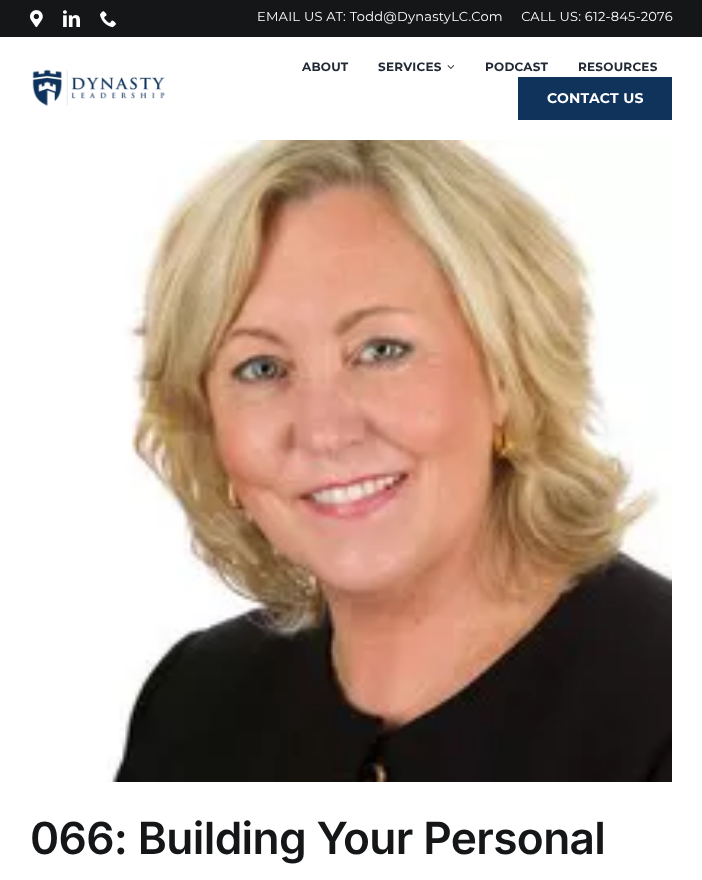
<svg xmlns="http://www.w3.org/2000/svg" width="702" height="880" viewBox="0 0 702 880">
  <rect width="100%" height="100%" fill="#fff"/>
  <path d="M0 0h702v37H0z" fill="#141617"/>
  <image x="30" y="10" width="13" height="18" href="img/1.png"/>
  <image x="63" y="10" width="17" height="17" href="img/2.png"/>
  <image x="100" y="11" width="16" height="17" href="img/3.png"/>
  <image x="32" y="69" width="133" height="37" href="img/4.png"/>
  <image x="447" y="65" width="8" height="4" href="img/5.png"/>
  <path d="M518 77h154v43H518z" fill="#0f335b"/>
  <image x="107" y="140" width="565" height="642" href="img/6.png"/>
  <text x="257" y="21" font-family="Montserrat" font-size="13" letter-spacing="0.25" fill="#fff" xml:space="preserve">EMAIL US AT: Todd@DynastyLC.Com     CALL US: 612-845-2076</text>
  <g font-family="Montserrat" font-size="12" font-weight="bold" letter-spacing="0.25" fill="#212934">
    <text x="302" y="71">ABOUT</text>
    <text x="378" y="71">SERVICES</text>
    <text x="485" y="71">PODCAST</text>
    <text x="578" y="71">RESOURCES</text>
  </g>
  <text x="547" y="103" font-family="Montserrat" font-size="14" font-weight="bold" letter-spacing="0.25" fill="#fff">CONTACT US</text>
  <text x="30" y="854" font-family="Inter" font-size="44.25" font-weight="600" letter-spacing="-0.65" fill="#141617">066: Building Your Personal</text>
</svg>
